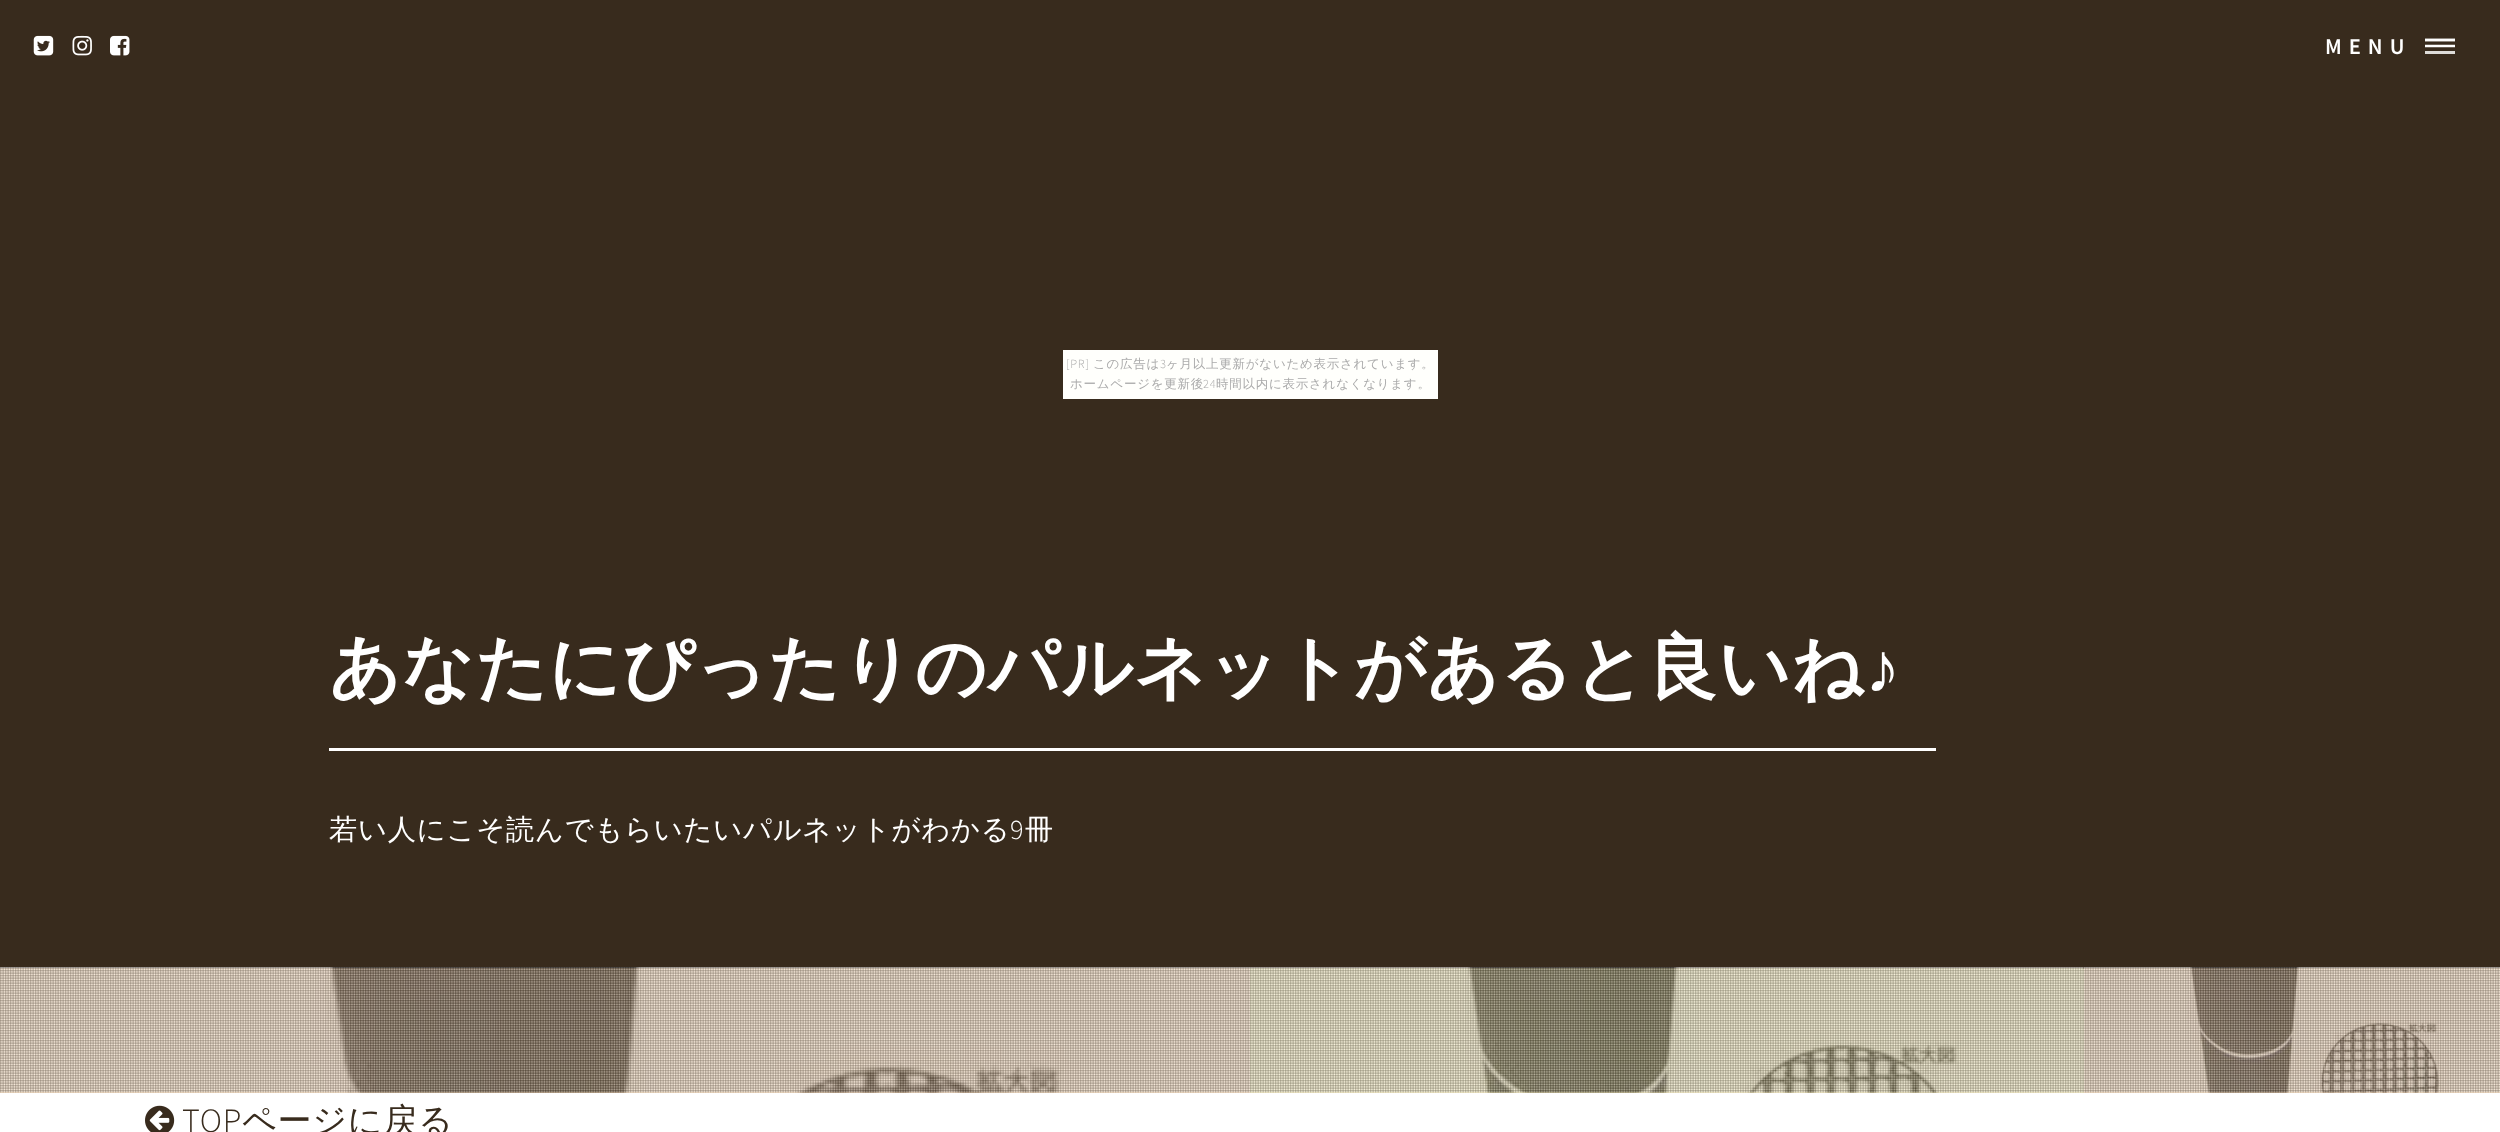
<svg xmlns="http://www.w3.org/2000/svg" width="2500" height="1132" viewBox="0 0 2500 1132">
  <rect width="100%" height="100%" fill="#382b1d"/>
  <image x="33" y="35" width="21" height="21" href="img/1.png"/>
  <image x="72" y="35" width="20" height="21" href="img/2.png"/>
  <image x="110" y="35" width="20" height="21" href="img/3.png"/>
  <path d="M2425 40H2455" fill="none" stroke="#fff" stroke-width="2.5"/>
  <path d="M2425 51h30v3H2425z" fill="#dedcd9"/>
  <path d="M2425 46H2455M2425 40H2455M2425 46H2455" fill="none" stroke="#fff" stroke-width="2.5"/>
  <path d="M329 748h1607v3H329z" fill="#fff"/>
  <path d="M0 969h2500v163H0z" fill="#fff"/>
  <path d="M0 1092h1250v1H0z" fill="#fbe0c2"/>
  <image x="0" y="967" width="1250" height="126" href="img/4.png"/>
  <image x="1250" y="967" width="834" height="126" href="img/6.png"/>
  <path d="M2084 1092h416v1H2084z" fill="#fbe0c2"/>
  <image x="2083" y="967" width="417" height="126" href="img/7.png"/>
  <path d="M1250 968h834v125H1250z" fill="#f8d3434d"/>
  <image x="0" y="967" width="2500" height="126" href="img/5.png"/>
  <image x="145" y="1105" width="30" height="27" href="img/8.png"/>
  <path d="M1063 350h375v49H1063z" fill="#fffffc"/>
  <text x="2325" y="54" font-family="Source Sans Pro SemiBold" font-size="22.5" font-weight="600" letter-spacing="7" fill="#fff">MENU</text>
  <text x="329" y="692" font-family="WenQuanYi Zen Hei" font-size="70.8" font-weight="bold" letter-spacing="0.75" fill="#fff">あなたにぴったりのパルネットがあると良いね</text>
  <text x="1865" y="692" font-family="Liberation Sans" font-size="70.8" font-weight="bold" letter-spacing="0.75" fill="#fff">♪</text>
  <text x="329" y="839" font-family="WenQuanYi Zen Hei" font-size="28.3" font-weight="500" letter-spacing="0.75" fill="#fff">若い人にこそ読んでもらいたいパルネットがわかる</text>
  <text x="1010" y="839" font-family="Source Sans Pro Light" font-size="28.3" font-weight="300" letter-spacing="0.75" fill="#fff">9</text>
  <text x="1025" y="839" font-family="WenQuanYi Zen Hei" font-size="28.3" font-weight="500" letter-spacing="0.75" fill="#fff">冊</text>
  <text x="182" y="1132" font-family="Source Sans Pro Light" font-size="34" font-weight="300" letter-spacing="0.75" fill="#382b1d">TOP</text>
  <text x="242" y="1132" font-family="WenQuanYi Zen Hei" font-size="34" font-weight="500" letter-spacing="0.75" fill="#382b1d">ページに戻る</text>
  <text x="1066" y="368" font-family="Source Sans Pro Light" font-size="12.5" font-weight="300" letter-spacing="0.75" fill="#aaa">[PR]</text>
  <text x="1093" y="368" font-family="WenQuanYi Zen Hei" font-size="12.5" font-weight="500" letter-spacing="0.75" fill="#aaa">この広告は</text>
  <text x="1160" y="368" font-family="Source Sans Pro Light" font-size="12.5" font-weight="300" letter-spacing="0.75" fill="#aaa">3</text>
  <g font-family="WenQuanYi Zen Hei" font-size="12.5" font-weight="500" letter-spacing="0.75" fill="#aaa">
    <text x="1166" y="368">ヶ月以上更新がないため表示されています。</text>
    <text x="1070" y="388">ホームページを更新後</text>
  </g>
  <text x="1203" y="388" font-family="Source Sans Pro Light" font-size="12.5" font-weight="300" letter-spacing="0.75" fill="#aaa">24</text>
  <text x="1216" y="388" font-family="WenQuanYi Zen Hei" font-size="12.5" font-weight="500" letter-spacing="0.75" fill="#aaa">時間以内に表示されなくなります。</text>
</svg>
